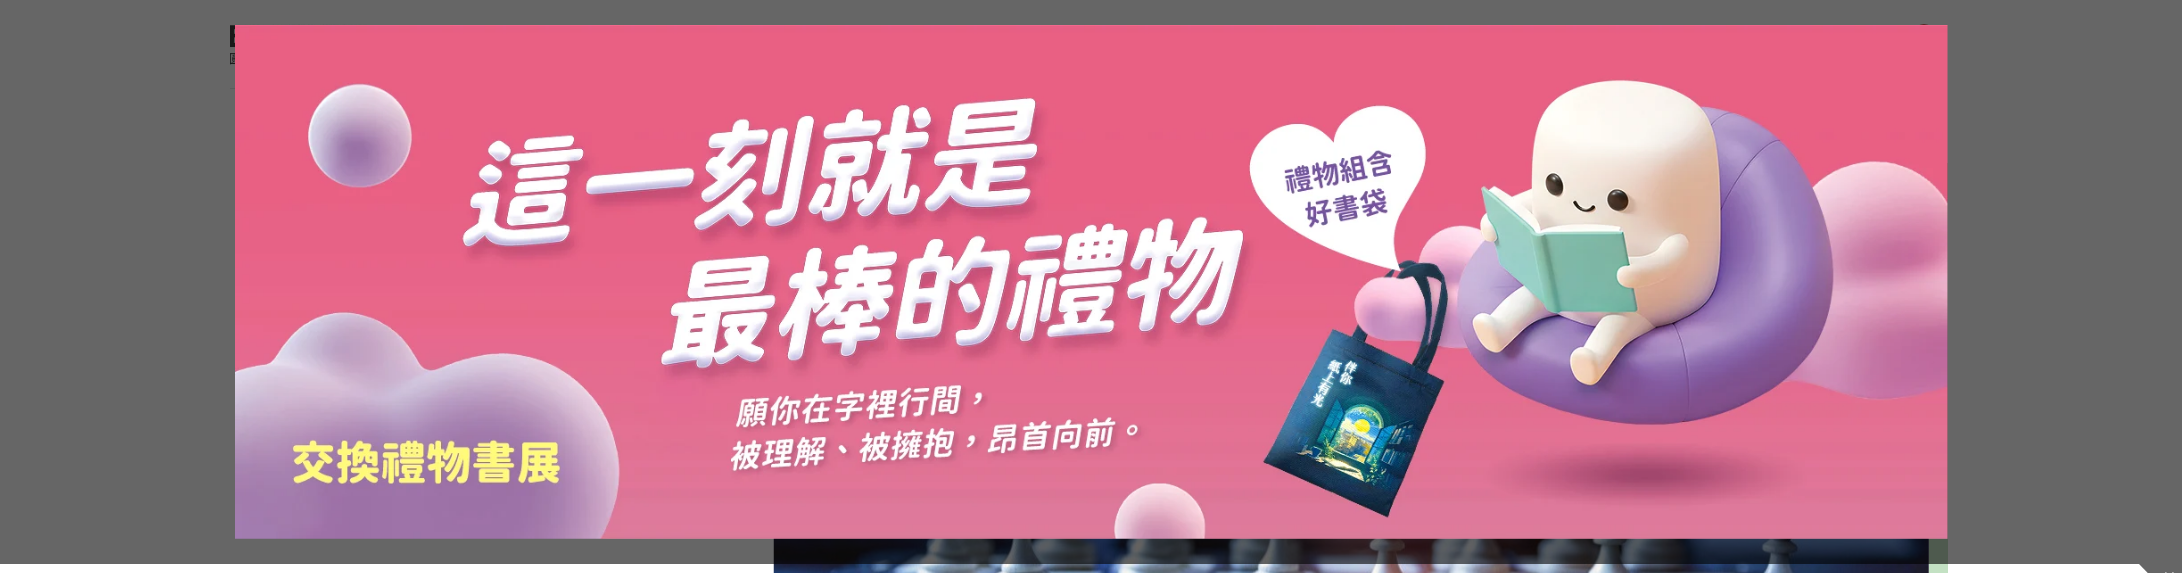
<svg xmlns="http://www.w3.org/2000/svg" width="2182" height="573" viewBox="0 0 2182 573">
  <rect width="100%" height="100%" fill="#fff"/>
  <path d="M0 0h2182v564H0z" fill="#666"/>
  <image x="230" y="24" width="213" height="41" href="img/1.png"/>
  <circle cx="1924" cy="34" r="10" fill="#592524"/>
  <path d="M230 88h5v1H230z" fill="#5c5c5c"/>
  <path d="M1929 163h19v401H1929z" fill="#4e5a4e"/>
  <image x="773" y="538" width="1156" height="35" href="img/4.png"/>
  <image x="235" y="25" width="1713" height="514" href="img/2.png"/>
  <path d="M2139 564H2182V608Z" fill="#666"/>
  <image x="2165" y="572" width="9" height="1" href="img/3.png"/>
  <path d="M1929 564h19v9H1929z" fill="#c3e1c3"/>
</svg>
